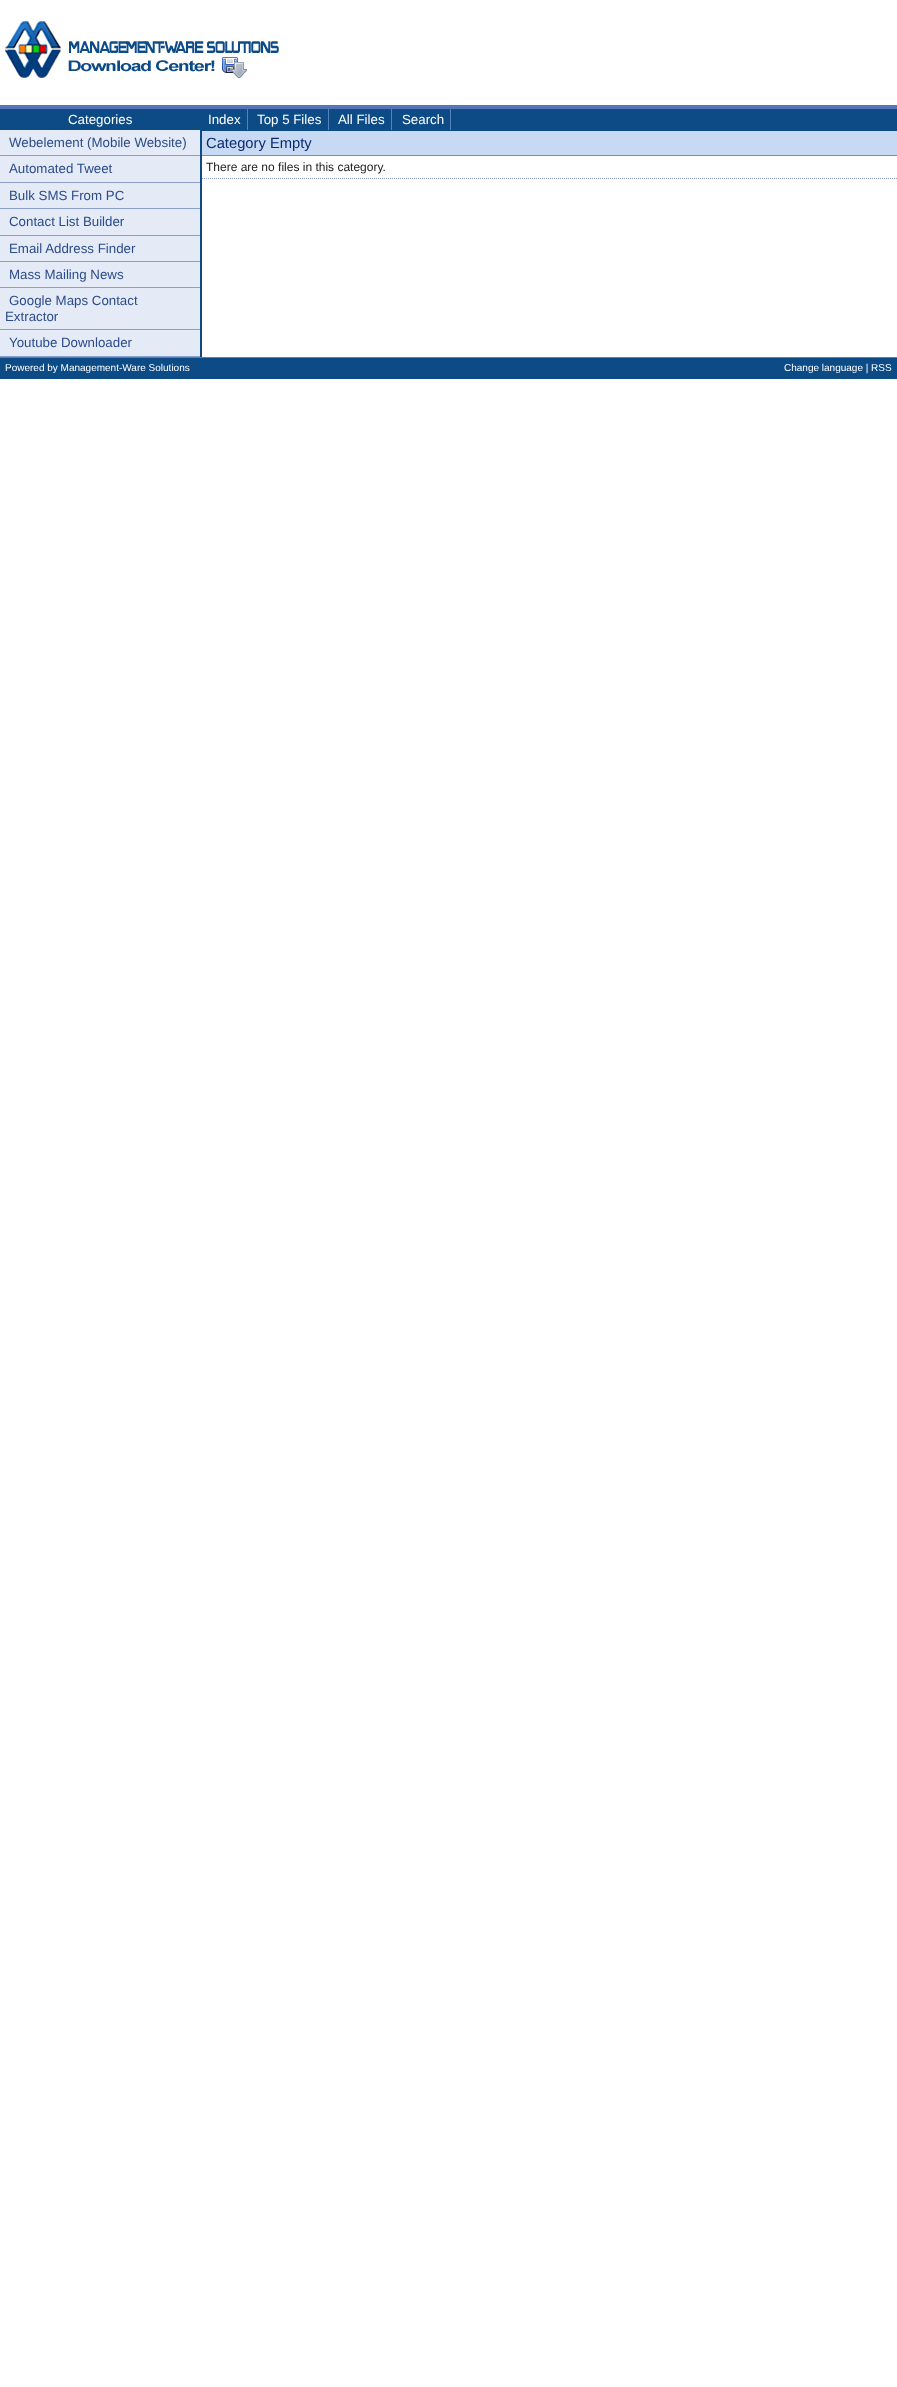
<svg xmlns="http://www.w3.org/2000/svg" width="897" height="2387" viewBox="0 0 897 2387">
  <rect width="100%" height="100%" fill="#fff"/>
  <path d="M200 109h2v248H200z" fill="#0d4b87"/>
  <image x="5" y="21" width="274" height="57" href="img/1.png"/>
  <path d="M0 109h200v21H0z" fill="#0d4b87"/>
  <path d="M0 130h200v25H0z" fill="#e4ebf6"/>
  <path d="M0 155h200v1H0z" fill="#899ec8"/>
  <path d="M0 156h200v26H0z" fill="#e4ebf6"/>
  <path d="M0 182h200v1H0z" fill="#899ec8"/>
  <path d="M0 183h200v25H0z" fill="#e4ebf6"/>
  <path d="M0 208h200v1H0z" fill="#899ec8"/>
  <path d="M0 209h200v26H0z" fill="#e4ebf6"/>
  <path d="M0 235h200v1H0z" fill="#899ec8"/>
  <path d="M0 236h200v25H0z" fill="#e4ebf6"/>
  <path d="M0 261h200v1H0z" fill="#899ec8"/>
  <path d="M0 262h200v25H0z" fill="#e4ebf6"/>
  <path d="M0 287h200v1H0z" fill="#899ec8"/>
  <path d="M0 288h200v41H0z" fill="#e4ebf6"/>
  <path d="M0 329h200v1H0z" fill="#899ec8"/>
  <path d="M0 330h200v26H0z" fill="#e4ebf6"/>
  <path d="M0 356h200v1H0z" fill="#899ec8"/>
  <path d="M0 105h897v4H0z" fill="#5575b7"/>
  <path d="M202 109h695v22H202z" fill="#0d4b87"/>
  <path d="M247 109h1v21H247z" fill="#5781ba"/>
  <path d="M328 109h1v21H328z" fill="#5781ba"/>
  <path d="M391 109h1v21H391z" fill="#5781ba"/>
  <path d="M450 109h1v21H450z" fill="#5781ba"/>
  <path d="M202 131h695v24H202z" fill="#c8d9f3"/>
  <path d="M202 155h695v1H202z" fill="#6a92c9"/>
  <path d="M202 178.5H897" fill="none" stroke="#899ec8" stroke-dasharray="1 1"/>
  <path d="M0 358h897v21H0z" fill="#0d4b87"/>
  <path d="M0 357h897v1H0z" fill="#5781ba"/>
  <text x="68" y="124" font-family="Liberation Sans" font-size="13.3" fill="#fff">Categories</text>
  <g font-family="Liberation Sans" font-size="13.3" fill="#2b4b8b">
    <text x="9" y="147">Webelement (Mobile Website)</text>
    <text x="9" y="173">Automated Tweet</text>
    <text x="9" y="200">Bulk SMS From PC</text>
    <text x="9" y="226">Contact List Builder</text>
    <text x="9" y="253">Email Address Finder</text>
    <text x="9" y="279">Mass Mailing News</text>
    <text x="9" y="305">Google Maps Contact</text>
    <text x="5" y="321">Extractor</text>
    <text x="9" y="347">Youtube Downloader</text>
  </g>
  <g font-family="Liberation Sans" font-size="13.3" fill="#fff">
    <text x="208" y="124">Index</text>
    <text x="257" y="124">Top 5 Files</text>
    <text x="338" y="124">All Files</text>
    <text x="402" y="124">Search</text>
  </g>
  <text x="206" y="148" font-family="Liberation Sans" font-size="14.75" fill="#0a2c70">Category Empty</text>
  <text x="206" y="171" font-family="Liberation Sans" font-size="12" fill="#222">There are no files in this category.</text>
  <g font-family="Liberation Sans" font-size="10" fill="#fff">
    <text x="5" y="371">Powered by Management-Ware Solutions</text>
    <text x="784" y="371">Change language | RSS</text>
  </g>
</svg>
